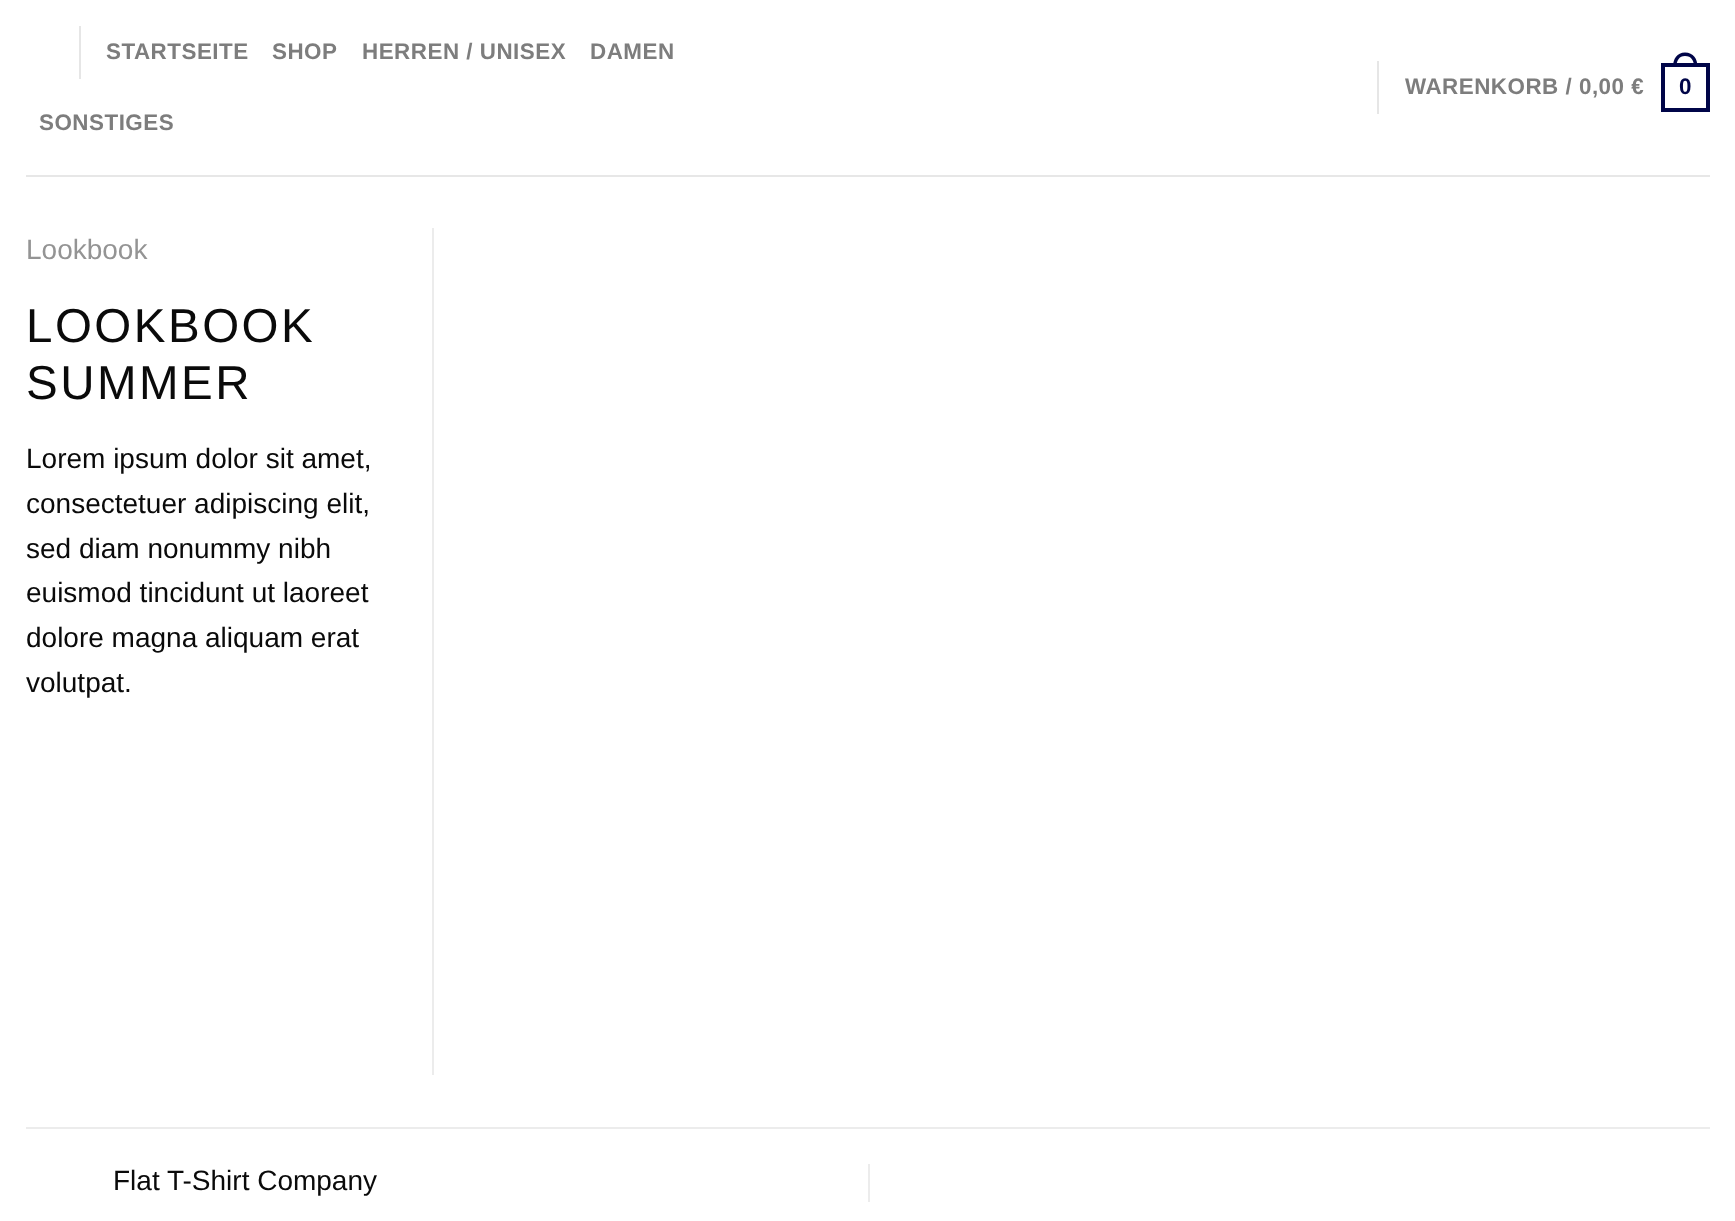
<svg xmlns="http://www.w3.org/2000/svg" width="1735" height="1221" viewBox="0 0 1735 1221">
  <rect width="100%" height="100%" fill="#fff"/>
  <path d="M79 26h2v53H79z" fill="#e6e6e6"/>
  <path d="M1377 61h2v53H1377z" fill="#e6e6e6"/>
  <path d="M1663 65h45v45H1663z" fill="none" stroke="#000548" stroke-width="4"/>
  <path d="M1685 52.5C1693.5 52.5 1697.5 59 1697.5 66.5H1673C1673 59 1677 52.5 1685 52.5ZM1685 56C1691.5 56 1694 61 1694 66.5H1676.5C1676.5 61 1679 56 1685 56Z" fill="#000548" fill-rule="evenodd"/>
  <path d="M26 175h1684v2H26z" fill="#e7e7e7"/>
  <path d="M432 228h2v847H432z" fill="#ececec"/>
  <path d="M26 1127h1684v2H26z" fill="#ececec"/>
  <path d="M868 1164h2v38H868z" fill="#ececec"/>
  <g font-family="Liberation Sans" font-size="22.4" font-weight="bold" letter-spacing="0.5" fill="#7d7d7d">
    <text x="106" y="59">STARTSEITE</text>
    <text x="272" y="59">SHOP</text>
    <text x="362" y="59">HERREN / UNISEX</text>
    <text x="590" y="59">DAMEN</text>
    <text x="39" y="130">SONSTIGES</text>
    <text x="1405" y="94">WARENKORB / 0,00 €</text>
  </g>
  <text x="1679" y="94" font-family="Liberation Sans" font-size="22.4" font-weight="bold" letter-spacing="0.5" fill="#000548">0</text>
  <text x="26" y="259" font-family="Liberation Sans" font-size="28" fill="#949494">Lookbook</text>
  <g font-family="Liberation Sans" font-size="47.5" letter-spacing="2.5" fill="#0a0a0a">
    <text x="26" y="342">LOOKBOOK</text>
    <text x="26" y="399">SUMMER</text>
  </g>
  <g font-family="Liberation Sans" font-size="28" fill="#0a0a0a">
    <text x="26" y="468">Lorem ipsum dolor sit amet,</text>
    <text x="26" y="513">consectetuer adipiscing elit,</text>
    <text x="26" y="558">sed diam nonummy nibh</text>
    <text x="26" y="602">euismod tincidunt ut laoreet</text>
    <text x="26" y="647">dolore magna aliquam erat</text>
    <text x="26" y="692">volutpat.</text>
    <text x="113" y="1190">Flat T-Shirt Company</text>
  </g>
</svg>
